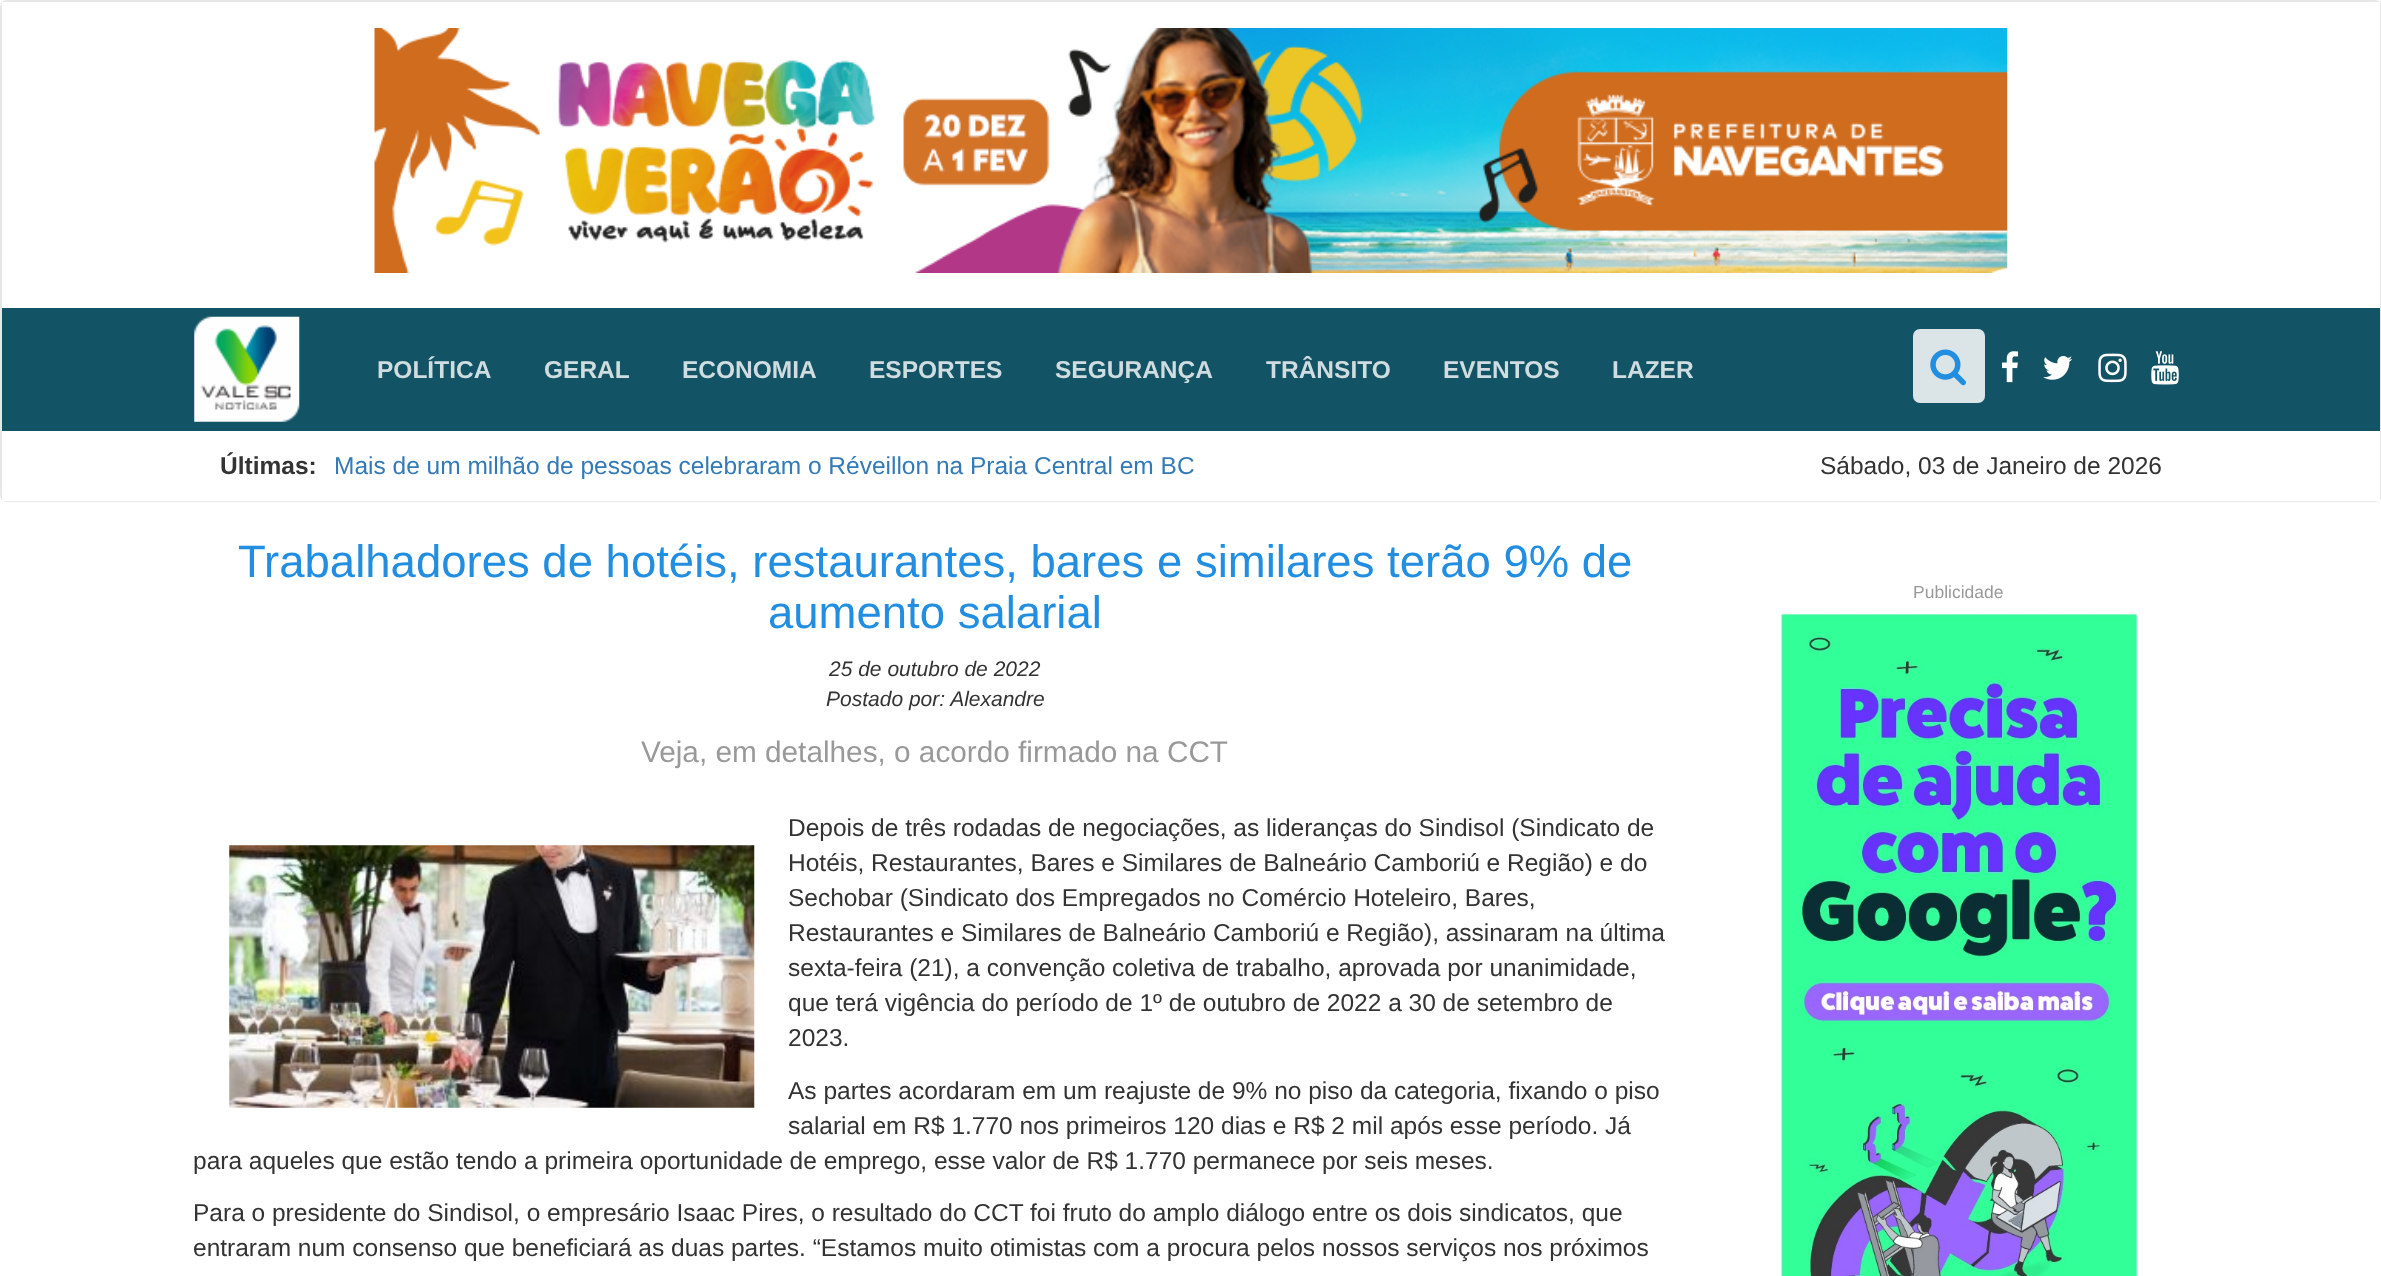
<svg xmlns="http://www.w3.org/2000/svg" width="2381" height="1276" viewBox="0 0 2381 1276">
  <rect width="100%" height="100%" fill="#fff"/>
  <rect x="1" y="1" width="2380" height="500" rx="6" fill="#125365" stroke="#e7e7e7" stroke-width="2"/>
  <path d="M2 2h2378v306H2z" fill="#fff"/>
  <image x="374" y="28" width="1634" height="245" href="img/1.png"/>
  <image x="194" y="316" width="106" height="106" href="img/2.png"/>
  <rect x="1913" y="329" width="72" height="74" rx="7" fill="#dbe5e8"/>
  <image x="1930" y="349" width="36" height="37" href="img/3.png"/>
  <image x="2002" y="351" width="17" height="32" href="img/4.png"/>
  <image x="2043" y="356" width="30" height="24" href="img/5.png"/>
  <image x="2098" y="353" width="29" height="30" href="img/6.png"/>
  <image x="2151" y="351" width="28" height="34" href="img/7.png"/>
  <path d="M2 431h2378v70H2z" fill="#fff"/>
  <image x="229" y="845" width="526" height="263" href="img/8.png"/>
  <image x="1781" y="614" width="356" height="662" href="img/9.png"/>
  <g font-family="Liberation Sans" font-size="24.5" font-weight="bold" fill="#d0dde0">
    <text x="377" y="378">POLÍTICA</text>
    <text x="544" y="378">GERAL</text>
    <text x="682" y="378">ECONOMIA</text>
    <text x="869" y="378">ESPORTES</text>
    <text x="1055" y="378">SEGURANÇA</text>
    <text x="1266" y="378">TRÂNSITO</text>
    <text x="1443" y="378">EVENTOS</text>
    <text x="1612" y="378">LAZER</text>
  </g>
  <text x="220" y="474" font-family="Liberation Sans" font-size="24.5" font-weight="bold" fill="#333">Últimas:</text>
  <text x="334" y="474" font-family="Liberation Sans" font-size="24.5" fill="#337ab7">Mais de um milhão de pessoas celebraram o Réveillon na Praia Central em BC</text>
  <text x="1820" y="474" font-family="Liberation Sans" font-size="24.5" fill="#333">Sábado, 03 de Janeiro de 2026</text>
  <g font-family="Liberation Sans" font-size="45.5" fill="#218ee1">
    <text x="238" y="577">Trabalhadores de hotéis, restaurantes, bares e similares terão 9% de</text>
    <text x="768" y="628">aumento salarial</text>
  </g>
  <g font-family="Liberation Sans" font-size="21" font-style="italic" fill="#333">
    <text x="829" y="676">25 de outubro de 2022</text>
    <text x="826" y="706">Postado por: Alexandre</text>
  </g>
  <text x="641" y="762" font-family="Liberation Sans" font-size="29.75" fill="#999">Veja, em detalhes, o acordo firmado na CCT</text>
  <g font-family="Liberation Sans" font-size="24.5" fill="#333">
    <text x="788" y="836">Depois de três rodadas de negociações, as lideranças do Sindisol (Sindicato de</text>
    <text x="788" y="871">Hotéis, Restaurantes, Bares e Similares de Balneário Camboriú e Região) e do</text>
    <text x="788" y="906">Sechobar (Sindicato dos Empregados no Comércio Hoteleiro, Bares,</text>
    <text x="788" y="941">Restaurantes e Similares de Balneário Camboriú e Região), assinaram na última</text>
    <text x="788" y="976">sexta-feira (21), a convenção coletiva de trabalho, aprovada por unanimidade,</text>
    <text x="788" y="1011">que terá vigência do período de 1º de outubro de 2022 a 30 de setembro de</text>
    <text x="788" y="1046">2023.</text>
    <text x="788" y="1099">As partes acordaram em um reajuste de 9% no piso da categoria, fixando o piso</text>
    <text x="788" y="1134">salarial em R$ 1.770 nos primeiros 120 dias e R$ 2 mil após esse período. Já</text>
    <text x="193" y="1169">para aqueles que estão tendo a primeira oportunidade de emprego, esse valor de R$ 1.770 permanece por seis meses.</text>
    <text x="193" y="1221">Para o presidente do Sindisol, o empresário Isaac Pires, o resultado do CCT foi fruto do amplo diálogo entre os dois sindicatos, que</text>
    <text x="193" y="1256">entraram num consenso que beneficiará as duas partes. “Estamos muito otimistas com a procura pelos nossos serviços nos próximos</text>
  </g>
  <text x="1913" y="598" font-family="Liberation Sans" font-size="17.5" fill="#999">Publicidade</text>
</svg>
